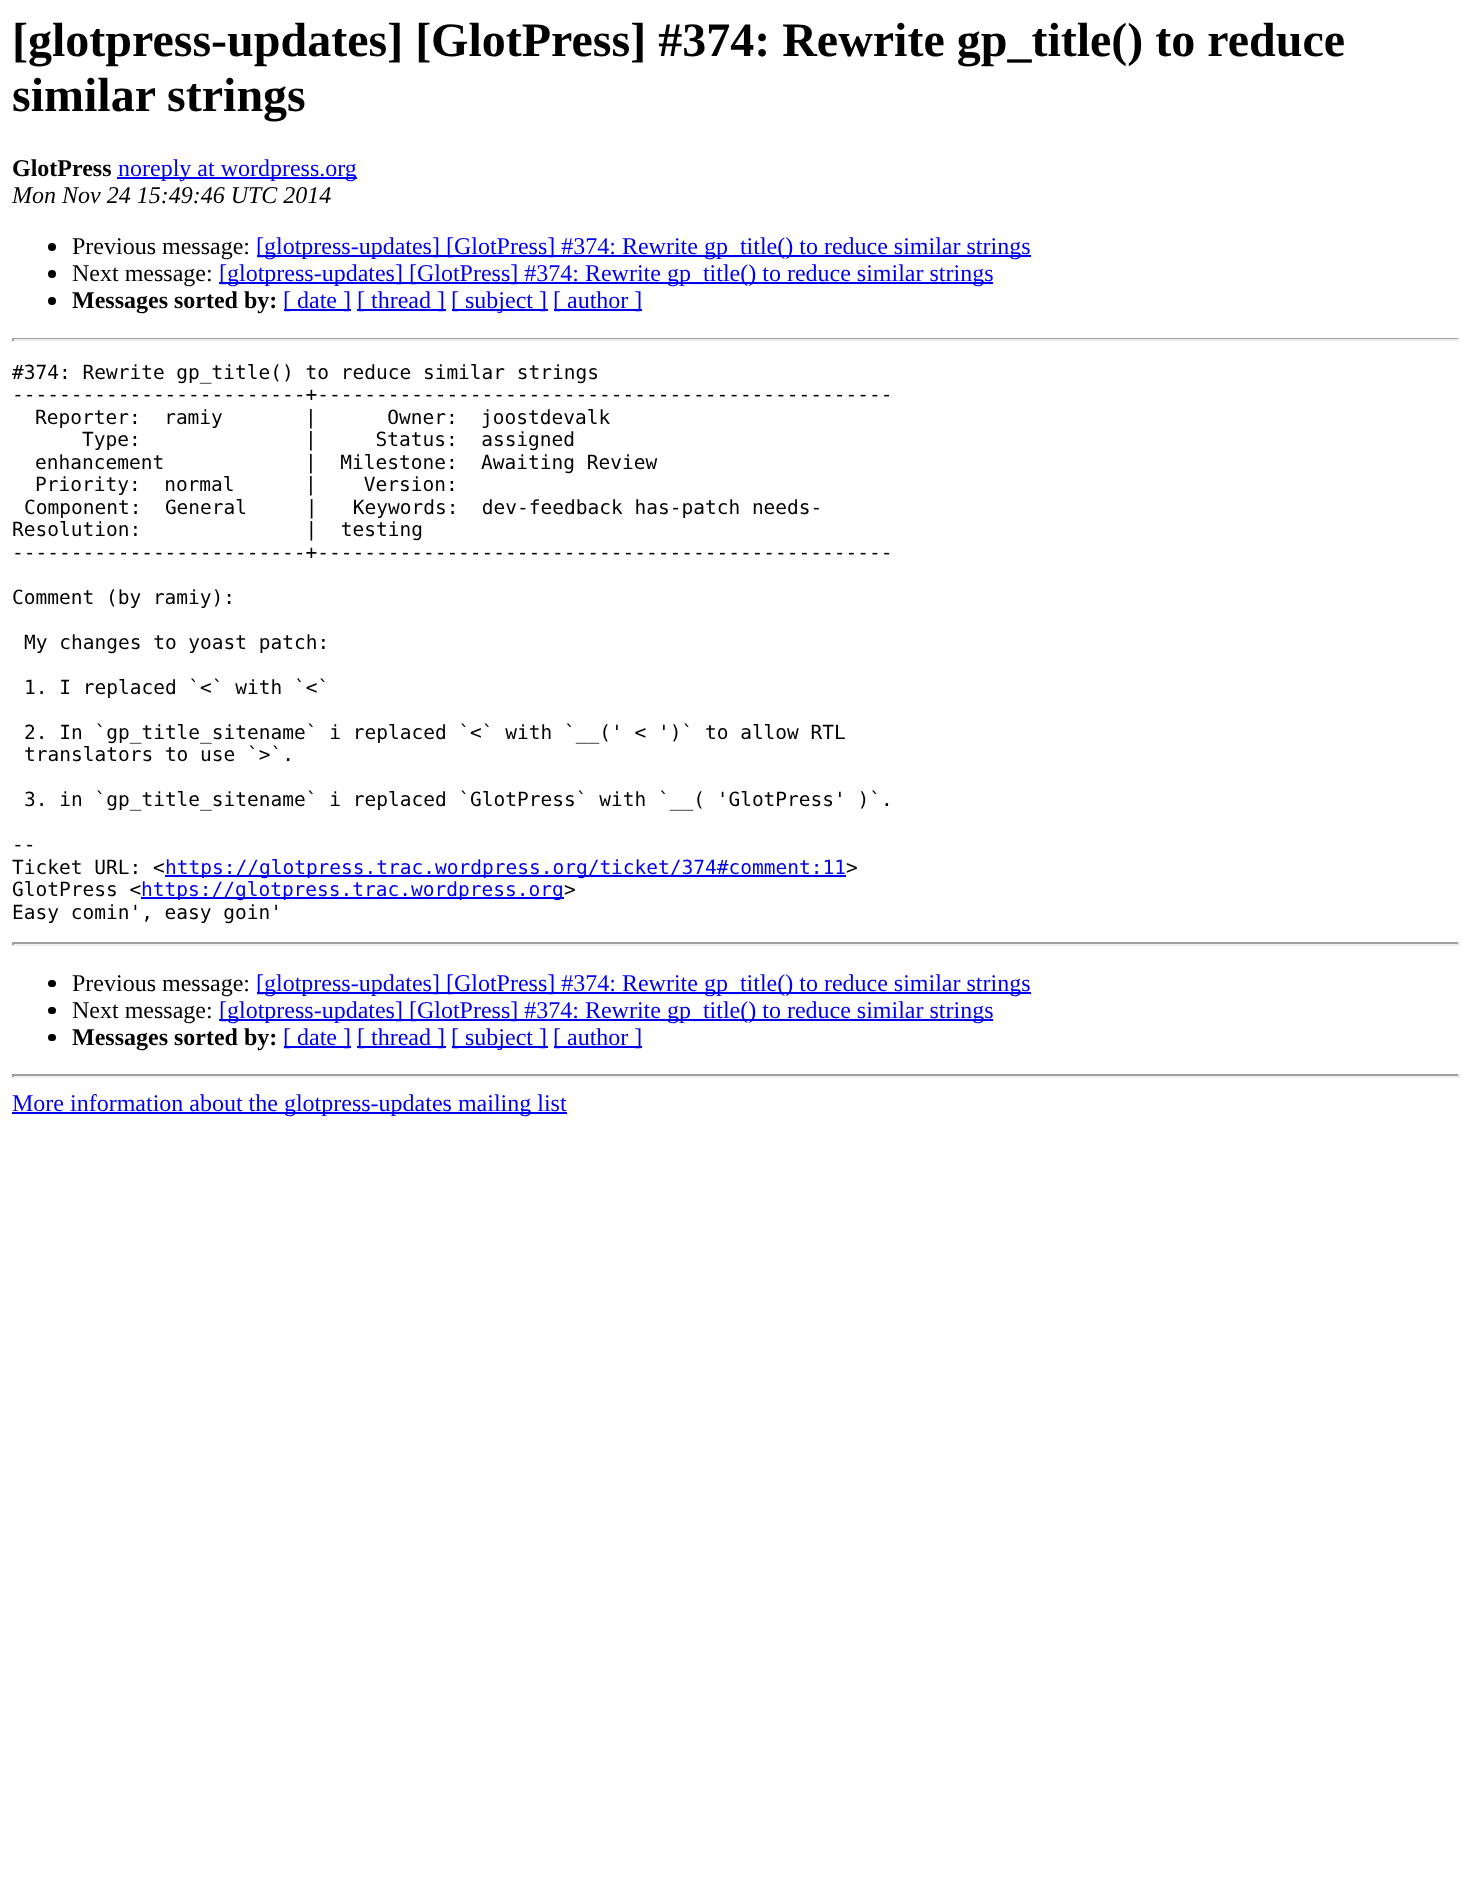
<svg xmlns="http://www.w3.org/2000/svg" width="1471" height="1879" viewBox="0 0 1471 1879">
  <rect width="100%" height="100%" fill="#fff"/>
  <path d="M117 177h240v2H117z" fill="#00e"/>
  <circle cx="52" cy="247" r="4" fill="#000"/>
  <path d="M257 255h774v2H257z" fill="#00e"/>
  <circle cx="52" cy="274" r="4" fill="#000"/>
  <path d="M219 282h774v2H219z" fill="#00e"/>
  <circle cx="52" cy="301" r="4" fill="#000"/>
  <path d="M284 309h67v2H284z" fill="#00e"/>
  <path d="M357 309h89v2H357z" fill="#00e"/>
  <path d="M452 309h96v2H452z" fill="#00e"/>
  <path d="M554 309h88v2H554z" fill="#00e"/>
  <path d="M12 338h1448v1H12z" fill="#9f9f9f"/>
  <path d="M1458 338h2v3H1458z" fill="#eee"/>
  <path d="M12 339h1448v2H12z" fill="#eee"/>
  <path d="M12 338h2v3H12z" fill="#9f9f9f"/>
  <path d="M165 875h681v2H165z" fill="#00e"/>
  <path d="M141 897h423v2H141z" fill="#00e"/>
  <path d="M12 942h1448v2H12z" fill="#9f9f9f"/>
  <path d="M1458 942h2v3H1458z" fill="#eee"/>
  <path d="M12 944h1448v2H12z" fill="#eee"/>
  <path d="M12 942h2v3H12z" fill="#9f9f9f"/>
  <rect x="48" y="980" width="8" height="7" rx="3.5" fill="#000"/>
  <path d="M257 992h774v2H257z" fill="#00e"/>
  <rect x="48" y="1007" width="8" height="7" rx="3.5" fill="#000"/>
  <path d="M219 1019h774v2H219z" fill="#00e"/>
  <rect x="48" y="1034" width="8" height="7" rx="3.5" fill="#000"/>
  <path d="M284 1046h67v2H284z" fill="#00e"/>
  <path d="M357 1046h89v2H357z" fill="#00e"/>
  <path d="M452 1046h96v2H452z" fill="#00e"/>
  <path d="M554 1046h88v2H554z" fill="#00e"/>
  <path d="M12 1074h1448v2H12z" fill="#9f9f9f"/>
  <path d="M1458 1074h2v3H1458z" fill="#eee"/>
  <path d="M12 1076h1448v2H12z" fill="#eee"/>
  <path d="M12 1074h2v3H12z" fill="#9f9f9f"/>
  <path d="M12 1112h555v2H12z" fill="#00e"/>
  <g font-family="Liberation Serif" font-size="48" font-weight="bold" fill="#000">
    <text x="12" y="56">[glotpress-updates] [GlotPress] #374: Rewrite gp_title() to reduce</text>
    <text x="12" y="111">similar strings</text>
  </g>
  <text x="12" y="176" font-family="Liberation Serif" font-size="24" font-weight="bold" fill="#000">GlotPress</text>
  <text x="118" y="176" font-family="Liberation Serif" font-size="24" fill="#00e">noreply at wordpress.org</text>
  <text x="12" y="203" font-family="Liberation Serif" font-size="24" font-style="italic" fill="#000">Mon Nov 24 15:49:46 UTC 2014</text>
  <text x="72" y="254" font-family="Liberation Serif" font-size="24" fill="#000">Previous message:</text>
  <text x="256" y="254" font-family="Liberation Serif" font-size="24" fill="#00e">[glotpress-updates] [GlotPress] #374: Rewrite gp_title() to reduce similar strings</text>
  <text x="72" y="281" font-family="Liberation Serif" font-size="24" fill="#000">Next message:</text>
  <text x="219" y="281" font-family="Liberation Serif" font-size="24" fill="#00e">[glotpress-updates] [GlotPress] #374: Rewrite gp_title() to reduce similar strings</text>
  <text x="72" y="308" font-family="Liberation Serif" font-size="24" font-weight="bold" fill="#000">Messages sorted by:</text>
  <g font-family="Liberation Serif" font-size="24" fill="#00e">
    <text x="283" y="308">[ date ]</text>
    <text x="357" y="308">[ thread ]</text>
    <text x="451" y="308">[ subject ]</text>
    <text x="553" y="308">[ author ]</text>
  </g>
  <g font-family="DejaVu Sans Mono" font-size="19.5" fill="#000">
    <text x="12" y="379">#374: Rewrite gp_title() to reduce similar strings</text>
    <text x="12" y="401">-------------------------+-------------------------------------------------</text>
    <text x="35" y="424" xml:space="preserve">Reporter:  ramiy       |      Owner:  joostdevalk</text>
    <text x="82" y="446" xml:space="preserve">Type:              |     Status:  assigned</text>
    <text x="35" y="469" xml:space="preserve">enhancement            |  Milestone:  Awaiting Review</text>
    <text x="35" y="491" xml:space="preserve">Priority:  normal      |    Version:</text>
    <text x="24" y="514" xml:space="preserve">Component:  General     |   Keywords:  dev-feedback has-patch needs-</text>
    <text x="12" y="536" xml:space="preserve">Resolution:              |  testing</text>
    <text x="12" y="559">-------------------------+-------------------------------------------------</text>
    <text x="12" y="604">Comment (by ramiy):</text>
    <text x="24" y="649">My changes to yoast patch:</text>
    <text x="24" y="694">1. I replaced `&lt;` with `&lt;`</text>
    <text x="24" y="739">2. In `gp_title_sitename` i replaced `&lt;` with `__(' &lt; ')` to allow RTL</text>
    <text x="24" y="761">translators to use `&gt;`.</text>
    <text x="24" y="806">3. in `gp_title_sitename` i replaced `GlotPress` with `__( 'GlotPress' )`.</text>
    <text x="12" y="851">--</text>
    <text x="12" y="874">Ticket URL: &lt;</text>
  </g>
  <text x="165" y="874" font-family="DejaVu Sans Mono" font-size="19.5" fill="#00e">https://glotpress.trac.wordpress.org/ticket/374#comment:11</text>
  <g font-family="DejaVu Sans Mono" font-size="19.5" fill="#000">
    <text x="846" y="874">&gt;</text>
    <text x="12" y="896">GlotPress &lt;</text>
  </g>
  <text x="141" y="896" font-family="DejaVu Sans Mono" font-size="19.5" fill="#00e">https://glotpress.trac.wordpress.org</text>
  <g font-family="DejaVu Sans Mono" font-size="19.5" fill="#000">
    <text x="564" y="896">&gt;</text>
    <text x="12" y="919">Easy comin', easy goin'</text>
  </g>
  <text x="72" y="991" font-family="Liberation Serif" font-size="24" fill="#000">Previous message:</text>
  <text x="256" y="991" font-family="Liberation Serif" font-size="24" fill="#00e">[glotpress-updates] [GlotPress] #374: Rewrite gp_title() to reduce similar strings</text>
  <text x="72" y="1018" font-family="Liberation Serif" font-size="24" fill="#000">Next message:</text>
  <text x="219" y="1018" font-family="Liberation Serif" font-size="24" fill="#00e">[glotpress-updates] [GlotPress] #374: Rewrite gp_title() to reduce similar strings</text>
  <text x="72" y="1045" font-family="Liberation Serif" font-size="24" font-weight="bold" fill="#000">Messages sorted by:</text>
  <g font-family="Liberation Serif" font-size="24" fill="#00e">
    <text x="283" y="1045">[ date ]</text>
    <text x="357" y="1045">[ thread ]</text>
    <text x="451" y="1045">[ subject ]</text>
    <text x="553" y="1045">[ author ]</text>
    <text x="12" y="1111">More information about the glotpress-updates mailing list</text>
  </g>
</svg>
